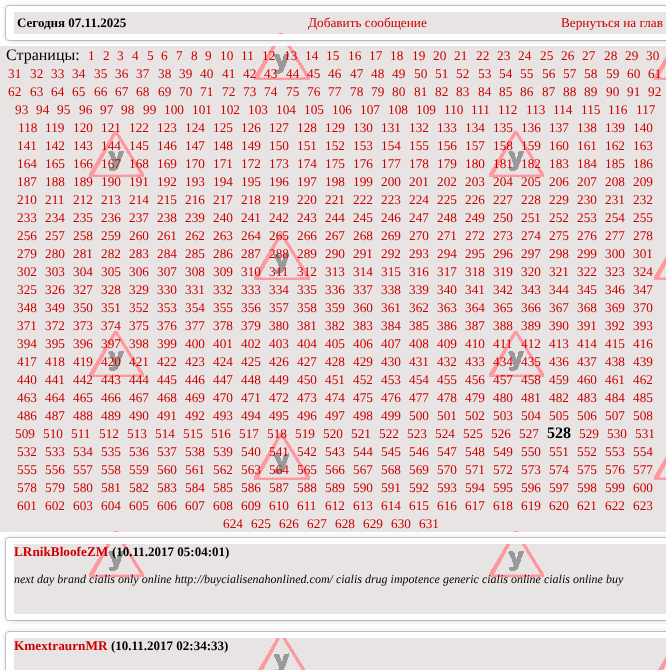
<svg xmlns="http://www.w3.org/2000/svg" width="666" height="670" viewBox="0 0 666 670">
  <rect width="100%" height="100%" fill="#e9e4e4"/>
  <image x="89" y="33" width="577" height="637" href="img/1.png"/>
  <image x="0" y="0" width="14" height="12" href="img/2.png"/>
  <image x="14" y="0" width="652" height="12" href="img/3.png"/>
  <image x="0" y="12" width="14" height="22" href="img/4.png"/>
  <image x="0" y="34" width="14" height="12" href="img/5.png"/>
  <image x="14" y="34" width="652" height="12" href="img/6.png"/>
  <image x="0" y="532" width="14" height="12" href="img/2.png"/>
  <image x="14" y="532" width="652" height="12" href="img/3.png"/>
  <image x="0" y="544" width="14" height="70" href="img/7.png"/>
  <image x="0" y="614" width="14" height="12" href="img/5.png"/>
  <image x="14" y="614" width="652" height="12" href="img/6.png"/>
  <image x="0" y="626" width="14" height="12" href="img/2.png"/>
  <image x="14" y="626" width="652" height="12" href="img/3.png"/>
  <image x="0" y="638" width="14" height="32" href="img/8.png"/>
  <text x="17" y="27" font-family="Liberation Serif" font-size="13" font-weight="bold" fill="#000">Сегодня 07.11.2025</text>
  <g font-family="Liberation Serif" font-size="13.25" fill="#c00">
    <text x="308" y="27">Добавить сообщение</text>
    <text x="561" y="27">Вернуться на глав</text>
  </g>
  <text x="6" y="60" font-family="Liberation Serif" font-size="16" fill="#000">Страницы:</text>
  <g font-family="Liberation Serif" font-size="13.25" fill="#c00">
    <text x="88" y="60">1</text>
    <text x="103" y="60">2</text>
    <text x="117" y="60">3</text>
    <text x="132" y="60">4</text>
    <text x="147" y="60">5</text>
    <text x="161" y="60">6</text>
    <text x="176" y="60">7</text>
    <text x="191" y="60">8</text>
    <text x="205" y="60">9</text>
    <text x="220" y="60">10</text>
    <text x="241" y="60">11</text>
    <text x="262" y="60">12</text>
    <text x="284" y="60">13</text>
    <text x="305" y="60">14</text>
    <text x="326" y="60">15</text>
    <text x="348" y="60">16</text>
    <text x="369" y="60">17</text>
    <text x="390" y="60">18</text>
    <text x="412" y="60">19</text>
    <text x="433" y="60">20</text>
    <text x="454" y="60">21</text>
    <text x="476" y="60">22</text>
    <text x="497" y="60">23</text>
    <text x="518" y="60">24</text>
    <text x="540" y="60">25</text>
    <text x="561" y="60">26</text>
    <text x="582" y="60">27</text>
    <text x="604" y="60">28</text>
    <text x="625" y="60">29</text>
    <text x="646" y="60">30</text>
    <text x="8" y="78">31</text>
    <text x="30" y="78">32</text>
    <text x="51" y="78">33</text>
    <text x="72" y="78">34</text>
    <text x="94" y="78">35</text>
    <text x="115" y="78">36</text>
    <text x="136" y="78">37</text>
    <text x="158" y="78">38</text>
    <text x="179" y="78">39</text>
    <text x="200" y="78">40</text>
    <text x="222" y="78">41</text>
    <text x="243" y="78">42</text>
    <text x="264" y="78">43</text>
    <text x="286" y="78">44</text>
    <text x="307" y="78">45</text>
    <text x="328" y="78">46</text>
    <text x="350" y="78">47</text>
    <text x="371" y="78">48</text>
    <text x="392" y="78">49</text>
    <text x="414" y="78">50</text>
    <text x="435" y="78">51</text>
    <text x="456" y="78">52</text>
    <text x="478" y="78">53</text>
    <text x="499" y="78">54</text>
    <text x="520" y="78">55</text>
    <text x="542" y="78">56</text>
    <text x="563" y="78">57</text>
    <text x="584" y="78">58</text>
    <text x="606" y="78">59</text>
    <text x="627" y="78">60</text>
    <text x="648" y="78">61</text>
    <text x="8" y="96">62</text>
    <text x="30" y="96">63</text>
    <text x="51" y="96">64</text>
    <text x="72" y="96">65</text>
    <text x="94" y="96">66</text>
    <text x="115" y="96">67</text>
    <text x="136" y="96">68</text>
    <text x="158" y="96">69</text>
    <text x="179" y="96">70</text>
    <text x="200" y="96">71</text>
    <text x="222" y="96">72</text>
    <text x="243" y="96">73</text>
    <text x="264" y="96">74</text>
    <text x="286" y="96">75</text>
    <text x="307" y="96">76</text>
    <text x="328" y="96">77</text>
    <text x="350" y="96">78</text>
    <text x="371" y="96">79</text>
    <text x="392" y="96">80</text>
    <text x="414" y="96">81</text>
    <text x="435" y="96">82</text>
    <text x="456" y="96">83</text>
    <text x="478" y="96">84</text>
    <text x="499" y="96">85</text>
    <text x="520" y="96">86</text>
    <text x="542" y="96">87</text>
    <text x="563" y="96">88</text>
    <text x="584" y="96">89</text>
    <text x="606" y="96">90</text>
    <text x="627" y="96">91</text>
    <text x="648" y="96">92</text>
    <text x="15" y="114">93</text>
    <text x="36" y="114">94</text>
    <text x="57" y="114">95</text>
    <text x="79" y="114">96</text>
    <text x="100" y="114">97</text>
    <text x="121" y="114">98</text>
    <text x="143" y="114">99</text>
    <text x="164" y="114">100</text>
    <text x="192" y="114">101</text>
    <text x="220" y="114">102</text>
    <text x="248" y="114">103</text>
    <text x="276" y="114">104</text>
    <text x="304" y="114">105</text>
    <text x="332" y="114">106</text>
    <text x="360" y="114">107</text>
    <text x="388" y="114">108</text>
    <text x="416" y="114">109</text>
    <text x="444" y="114">110</text>
    <text x="471" y="114">111</text>
    <text x="498" y="114">112</text>
    <text x="526" y="114">113</text>
    <text x="553" y="114">114</text>
    <text x="581" y="114">115</text>
    <text x="608" y="114">116</text>
    <text x="636" y="114">117</text>
    <text x="18" y="132">118</text>
    <text x="45" y="132">119</text>
    <text x="73" y="132">120</text>
    <text x="101" y="132">121</text>
    <text x="129" y="132">122</text>
    <text x="157" y="132">123</text>
    <text x="185" y="132">124</text>
    <text x="213" y="132">125</text>
    <text x="241" y="132">126</text>
    <text x="269" y="132">127</text>
    <text x="297" y="132">128</text>
    <text x="325" y="132">129</text>
    <text x="353" y="132">130</text>
    <text x="381" y="132">131</text>
    <text x="409" y="132">132</text>
    <text x="437" y="132">133</text>
    <text x="465" y="132">134</text>
    <text x="493" y="132">135</text>
    <text x="521" y="132">136</text>
    <text x="549" y="132">137</text>
    <text x="577" y="132">138</text>
    <text x="605" y="132">139</text>
    <text x="633" y="132">140</text>
    <text x="17" y="150">141</text>
    <text x="45" y="150">142</text>
    <text x="73" y="150">143</text>
    <text x="101" y="150">144</text>
    <text x="129" y="150">145</text>
    <text x="157" y="150">146</text>
    <text x="185" y="150">147</text>
    <text x="213" y="150">148</text>
    <text x="241" y="150">149</text>
    <text x="269" y="150">150</text>
    <text x="297" y="150">151</text>
    <text x="325" y="150">152</text>
    <text x="353" y="150">153</text>
    <text x="381" y="150">154</text>
    <text x="409" y="150">155</text>
    <text x="437" y="150">156</text>
    <text x="465" y="150">157</text>
    <text x="493" y="150">158</text>
    <text x="521" y="150">159</text>
    <text x="549" y="150">160</text>
    <text x="577" y="150">161</text>
    <text x="605" y="150">162</text>
    <text x="633" y="150">163</text>
    <text x="17" y="168">164</text>
    <text x="45" y="168">165</text>
    <text x="73" y="168">166</text>
    <text x="101" y="168">167</text>
    <text x="129" y="168">168</text>
    <text x="157" y="168">169</text>
    <text x="185" y="168">170</text>
    <text x="213" y="168">171</text>
    <text x="241" y="168">172</text>
    <text x="269" y="168">173</text>
    <text x="297" y="168">174</text>
    <text x="325" y="168">175</text>
    <text x="353" y="168">176</text>
    <text x="381" y="168">177</text>
    <text x="409" y="168">178</text>
    <text x="437" y="168">179</text>
    <text x="465" y="168">180</text>
    <text x="493" y="168">181</text>
    <text x="521" y="168">182</text>
    <text x="549" y="168">183</text>
    <text x="577" y="168">184</text>
    <text x="605" y="168">185</text>
    <text x="633" y="168">186</text>
    <text x="17" y="186">187</text>
    <text x="45" y="186">188</text>
    <text x="73" y="186">189</text>
    <text x="101" y="186">190</text>
    <text x="129" y="186">191</text>
    <text x="157" y="186">192</text>
    <text x="185" y="186">193</text>
    <text x="213" y="186">194</text>
    <text x="241" y="186">195</text>
    <text x="269" y="186">196</text>
    <text x="297" y="186">197</text>
    <text x="325" y="186">198</text>
    <text x="353" y="186">199</text>
    <text x="381" y="186">200</text>
    <text x="409" y="186">201</text>
    <text x="437" y="186">202</text>
    <text x="465" y="186">203</text>
    <text x="493" y="186">204</text>
    <text x="521" y="186">205</text>
    <text x="549" y="186">206</text>
    <text x="577" y="186">207</text>
    <text x="605" y="186">208</text>
    <text x="633" y="186">209</text>
    <text x="17" y="204">210</text>
    <text x="45" y="204">211</text>
    <text x="73" y="204">212</text>
    <text x="101" y="204">213</text>
    <text x="129" y="204">214</text>
    <text x="157" y="204">215</text>
    <text x="185" y="204">216</text>
    <text x="213" y="204">217</text>
    <text x="241" y="204">218</text>
    <text x="269" y="204">219</text>
    <text x="297" y="204">220</text>
    <text x="325" y="204">221</text>
    <text x="353" y="204">222</text>
    <text x="381" y="204">223</text>
    <text x="409" y="204">224</text>
    <text x="437" y="204">225</text>
    <text x="465" y="204">226</text>
    <text x="493" y="204">227</text>
    <text x="521" y="204">228</text>
    <text x="549" y="204">229</text>
    <text x="577" y="204">230</text>
    <text x="605" y="204">231</text>
    <text x="633" y="204">232</text>
    <text x="17" y="222">233</text>
    <text x="45" y="222">234</text>
    <text x="73" y="222">235</text>
    <text x="101" y="222">236</text>
    <text x="129" y="222">237</text>
    <text x="157" y="222">238</text>
    <text x="185" y="222">239</text>
    <text x="213" y="222">240</text>
    <text x="241" y="222">241</text>
    <text x="269" y="222">242</text>
    <text x="297" y="222">243</text>
    <text x="325" y="222">244</text>
    <text x="353" y="222">245</text>
    <text x="381" y="222">246</text>
    <text x="409" y="222">247</text>
    <text x="437" y="222">248</text>
    <text x="465" y="222">249</text>
    <text x="493" y="222">250</text>
    <text x="521" y="222">251</text>
    <text x="549" y="222">252</text>
    <text x="577" y="222">253</text>
    <text x="605" y="222">254</text>
    <text x="633" y="222">255</text>
    <text x="17" y="240">256</text>
    <text x="45" y="240">257</text>
    <text x="73" y="240">258</text>
    <text x="101" y="240">259</text>
    <text x="129" y="240">260</text>
    <text x="157" y="240">261</text>
    <text x="185" y="240">262</text>
    <text x="213" y="240">263</text>
    <text x="241" y="240">264</text>
    <text x="269" y="240">265</text>
    <text x="297" y="240">266</text>
    <text x="325" y="240">267</text>
    <text x="353" y="240">268</text>
    <text x="381" y="240">269</text>
    <text x="409" y="240">270</text>
    <text x="437" y="240">271</text>
    <text x="465" y="240">272</text>
    <text x="493" y="240">273</text>
    <text x="521" y="240">274</text>
    <text x="549" y="240">275</text>
    <text x="577" y="240">276</text>
    <text x="605" y="240">277</text>
    <text x="633" y="240">278</text>
    <text x="17" y="258">279</text>
    <text x="45" y="258">280</text>
    <text x="73" y="258">281</text>
    <text x="101" y="258">282</text>
    <text x="129" y="258">283</text>
    <text x="157" y="258">284</text>
    <text x="185" y="258">285</text>
    <text x="213" y="258">286</text>
    <text x="241" y="258">287</text>
    <text x="269" y="258">288</text>
    <text x="297" y="258">289</text>
    <text x="325" y="258">290</text>
    <text x="353" y="258">291</text>
    <text x="381" y="258">292</text>
    <text x="409" y="258">293</text>
    <text x="437" y="258">294</text>
    <text x="465" y="258">295</text>
    <text x="493" y="258">296</text>
    <text x="521" y="258">297</text>
    <text x="549" y="258">298</text>
    <text x="577" y="258">299</text>
    <text x="605" y="258">300</text>
    <text x="633" y="258">301</text>
    <text x="17" y="276">302</text>
    <text x="45" y="276">303</text>
    <text x="73" y="276">304</text>
    <text x="101" y="276">305</text>
    <text x="129" y="276">306</text>
    <text x="157" y="276">307</text>
    <text x="185" y="276">308</text>
    <text x="213" y="276">309</text>
    <text x="241" y="276">310</text>
    <text x="269" y="276">311</text>
    <text x="297" y="276">312</text>
    <text x="325" y="276">313</text>
    <text x="353" y="276">314</text>
    <text x="381" y="276">315</text>
    <text x="409" y="276">316</text>
    <text x="437" y="276">317</text>
    <text x="465" y="276">318</text>
    <text x="493" y="276">319</text>
    <text x="521" y="276">320</text>
    <text x="549" y="276">321</text>
    <text x="577" y="276">322</text>
    <text x="605" y="276">323</text>
    <text x="633" y="276">324</text>
    <text x="17" y="294">325</text>
    <text x="45" y="294">326</text>
    <text x="73" y="294">327</text>
    <text x="101" y="294">328</text>
    <text x="129" y="294">329</text>
    <text x="157" y="294">330</text>
    <text x="185" y="294">331</text>
    <text x="213" y="294">332</text>
    <text x="241" y="294">333</text>
    <text x="269" y="294">334</text>
    <text x="297" y="294">335</text>
    <text x="325" y="294">336</text>
    <text x="353" y="294">337</text>
    <text x="381" y="294">338</text>
    <text x="409" y="294">339</text>
    <text x="437" y="294">340</text>
    <text x="465" y="294">341</text>
    <text x="493" y="294">342</text>
    <text x="521" y="294">343</text>
    <text x="549" y="294">344</text>
    <text x="577" y="294">345</text>
    <text x="605" y="294">346</text>
    <text x="633" y="294">347</text>
    <text x="17" y="312">348</text>
    <text x="45" y="312">349</text>
    <text x="73" y="312">350</text>
    <text x="101" y="312">351</text>
    <text x="129" y="312">352</text>
    <text x="157" y="312">353</text>
    <text x="185" y="312">354</text>
    <text x="213" y="312">355</text>
    <text x="241" y="312">356</text>
    <text x="269" y="312">357</text>
    <text x="297" y="312">358</text>
    <text x="325" y="312">359</text>
    <text x="353" y="312">360</text>
    <text x="381" y="312">361</text>
    <text x="409" y="312">362</text>
    <text x="437" y="312">363</text>
    <text x="465" y="312">364</text>
    <text x="493" y="312">365</text>
    <text x="521" y="312">366</text>
    <text x="549" y="312">367</text>
    <text x="577" y="312">368</text>
    <text x="605" y="312">369</text>
    <text x="633" y="312">370</text>
    <text x="17" y="330">371</text>
    <text x="45" y="330">372</text>
    <text x="73" y="330">373</text>
    <text x="101" y="330">374</text>
    <text x="129" y="330">375</text>
    <text x="157" y="330">376</text>
    <text x="185" y="330">377</text>
    <text x="213" y="330">378</text>
    <text x="241" y="330">379</text>
    <text x="269" y="330">380</text>
    <text x="297" y="330">381</text>
    <text x="325" y="330">382</text>
    <text x="353" y="330">383</text>
    <text x="381" y="330">384</text>
    <text x="409" y="330">385</text>
    <text x="437" y="330">386</text>
    <text x="465" y="330">387</text>
    <text x="493" y="330">388</text>
    <text x="521" y="330">389</text>
    <text x="549" y="330">390</text>
    <text x="577" y="330">391</text>
    <text x="605" y="330">392</text>
    <text x="633" y="330">393</text>
    <text x="17" y="348">394</text>
    <text x="45" y="348">395</text>
    <text x="73" y="348">396</text>
    <text x="101" y="348">397</text>
    <text x="129" y="348">398</text>
    <text x="157" y="348">399</text>
    <text x="185" y="348">400</text>
    <text x="213" y="348">401</text>
    <text x="241" y="348">402</text>
    <text x="269" y="348">403</text>
    <text x="297" y="348">404</text>
    <text x="325" y="348">405</text>
    <text x="353" y="348">406</text>
    <text x="381" y="348">407</text>
    <text x="409" y="348">408</text>
    <text x="437" y="348">409</text>
    <text x="465" y="348">410</text>
    <text x="493" y="348">411</text>
    <text x="521" y="348">412</text>
    <text x="549" y="348">413</text>
    <text x="577" y="348">414</text>
    <text x="605" y="348">415</text>
    <text x="633" y="348">416</text>
    <text x="17" y="366">417</text>
    <text x="45" y="366">418</text>
    <text x="73" y="366">419</text>
    <text x="101" y="366">420</text>
    <text x="129" y="366">421</text>
    <text x="157" y="366">422</text>
    <text x="185" y="366">423</text>
    <text x="213" y="366">424</text>
    <text x="241" y="366">425</text>
    <text x="269" y="366">426</text>
    <text x="297" y="366">427</text>
    <text x="325" y="366">428</text>
    <text x="353" y="366">429</text>
    <text x="381" y="366">430</text>
    <text x="409" y="366">431</text>
    <text x="437" y="366">432</text>
    <text x="465" y="366">433</text>
    <text x="493" y="366">434</text>
    <text x="521" y="366">435</text>
    <text x="549" y="366">436</text>
    <text x="577" y="366">437</text>
    <text x="605" y="366">438</text>
    <text x="633" y="366">439</text>
    <text x="17" y="384">440</text>
    <text x="45" y="384">441</text>
    <text x="73" y="384">442</text>
    <text x="101" y="384">443</text>
    <text x="129" y="384">444</text>
    <text x="157" y="384">445</text>
    <text x="185" y="384">446</text>
    <text x="213" y="384">447</text>
    <text x="241" y="384">448</text>
    <text x="269" y="384">449</text>
    <text x="297" y="384">450</text>
    <text x="325" y="384">451</text>
    <text x="353" y="384">452</text>
    <text x="381" y="384">453</text>
    <text x="409" y="384">454</text>
    <text x="437" y="384">455</text>
    <text x="465" y="384">456</text>
    <text x="493" y="384">457</text>
    <text x="521" y="384">458</text>
    <text x="549" y="384">459</text>
    <text x="577" y="384">460</text>
    <text x="605" y="384">461</text>
    <text x="633" y="384">462</text>
    <text x="17" y="402">463</text>
    <text x="45" y="402">464</text>
    <text x="73" y="402">465</text>
    <text x="101" y="402">466</text>
    <text x="129" y="402">467</text>
    <text x="157" y="402">468</text>
    <text x="185" y="402">469</text>
    <text x="213" y="402">470</text>
    <text x="241" y="402">471</text>
    <text x="269" y="402">472</text>
    <text x="297" y="402">473</text>
    <text x="325" y="402">474</text>
    <text x="353" y="402">475</text>
    <text x="381" y="402">476</text>
    <text x="409" y="402">477</text>
    <text x="437" y="402">478</text>
    <text x="465" y="402">479</text>
    <text x="493" y="402">480</text>
    <text x="521" y="402">481</text>
    <text x="549" y="402">482</text>
    <text x="577" y="402">483</text>
    <text x="605" y="402">484</text>
    <text x="633" y="402">485</text>
    <text x="17" y="420">486</text>
    <text x="45" y="420">487</text>
    <text x="73" y="420">488</text>
    <text x="101" y="420">489</text>
    <text x="129" y="420">490</text>
    <text x="157" y="420">491</text>
    <text x="185" y="420">492</text>
    <text x="213" y="420">493</text>
    <text x="241" y="420">494</text>
    <text x="269" y="420">495</text>
    <text x="297" y="420">496</text>
    <text x="325" y="420">497</text>
    <text x="353" y="420">498</text>
    <text x="381" y="420">499</text>
    <text x="409" y="420">500</text>
    <text x="437" y="420">501</text>
    <text x="465" y="420">502</text>
    <text x="493" y="420">503</text>
    <text x="521" y="420">504</text>
    <text x="549" y="420">505</text>
    <text x="577" y="420">506</text>
    <text x="605" y="420">507</text>
    <text x="633" y="420">508</text>
    <text x="15" y="438">509</text>
    <text x="43" y="438">510</text>
    <text x="71" y="438">511</text>
    <text x="99" y="438">512</text>
    <text x="127" y="438">513</text>
    <text x="155" y="438">514</text>
    <text x="183" y="438">515</text>
    <text x="211" y="438">516</text>
    <text x="239" y="438">517</text>
    <text x="267" y="438">518</text>
    <text x="295" y="438">519</text>
    <text x="323" y="438">520</text>
    <text x="351" y="438">521</text>
    <text x="379" y="438">522</text>
    <text x="407" y="438">523</text>
    <text x="435" y="438">524</text>
    <text x="463" y="438">525</text>
    <text x="491" y="438">526</text>
    <text x="519" y="438">527</text>
  </g>
  <text x="547" y="438" font-family="Liberation Serif" font-size="16" font-weight="bold" fill="#000">528</text>
  <g font-family="Liberation Serif" font-size="13.25" fill="#c00">
    <text x="579" y="438">529</text>
    <text x="607" y="438">530</text>
    <text x="635" y="438">531</text>
    <text x="17" y="456">532</text>
    <text x="45" y="456">533</text>
    <text x="73" y="456">534</text>
    <text x="101" y="456">535</text>
    <text x="129" y="456">536</text>
    <text x="157" y="456">537</text>
    <text x="185" y="456">538</text>
    <text x="213" y="456">539</text>
    <text x="241" y="456">540</text>
    <text x="269" y="456">541</text>
    <text x="297" y="456">542</text>
    <text x="325" y="456">543</text>
    <text x="353" y="456">544</text>
    <text x="381" y="456">545</text>
    <text x="409" y="456">546</text>
    <text x="437" y="456">547</text>
    <text x="465" y="456">548</text>
    <text x="493" y="456">549</text>
    <text x="521" y="456">550</text>
    <text x="549" y="456">551</text>
    <text x="577" y="456">552</text>
    <text x="605" y="456">553</text>
    <text x="633" y="456">554</text>
    <text x="17" y="474">555</text>
    <text x="45" y="474">556</text>
    <text x="73" y="474">557</text>
    <text x="101" y="474">558</text>
    <text x="129" y="474">559</text>
    <text x="157" y="474">560</text>
    <text x="185" y="474">561</text>
    <text x="213" y="474">562</text>
    <text x="241" y="474">563</text>
    <text x="269" y="474">564</text>
    <text x="297" y="474">565</text>
    <text x="325" y="474">566</text>
    <text x="353" y="474">567</text>
    <text x="381" y="474">568</text>
    <text x="409" y="474">569</text>
    <text x="437" y="474">570</text>
    <text x="465" y="474">571</text>
    <text x="493" y="474">572</text>
    <text x="521" y="474">573</text>
    <text x="549" y="474">574</text>
    <text x="577" y="474">575</text>
    <text x="605" y="474">576</text>
    <text x="633" y="474">577</text>
    <text x="17" y="492">578</text>
    <text x="45" y="492">579</text>
    <text x="73" y="492">580</text>
    <text x="101" y="492">581</text>
    <text x="129" y="492">582</text>
    <text x="157" y="492">583</text>
    <text x="185" y="492">584</text>
    <text x="213" y="492">585</text>
    <text x="241" y="492">586</text>
    <text x="269" y="492">587</text>
    <text x="297" y="492">588</text>
    <text x="325" y="492">589</text>
    <text x="353" y="492">590</text>
    <text x="381" y="492">591</text>
    <text x="409" y="492">592</text>
    <text x="437" y="492">593</text>
    <text x="465" y="492">594</text>
    <text x="493" y="492">595</text>
    <text x="521" y="492">596</text>
    <text x="549" y="492">597</text>
    <text x="577" y="492">598</text>
    <text x="605" y="492">599</text>
    <text x="633" y="492">600</text>
    <text x="17" y="510">601</text>
    <text x="45" y="510">602</text>
    <text x="73" y="510">603</text>
    <text x="101" y="510">604</text>
    <text x="129" y="510">605</text>
    <text x="157" y="510">606</text>
    <text x="185" y="510">607</text>
    <text x="213" y="510">608</text>
    <text x="241" y="510">609</text>
    <text x="269" y="510">610</text>
    <text x="297" y="510">611</text>
    <text x="325" y="510">612</text>
    <text x="353" y="510">613</text>
    <text x="381" y="510">614</text>
    <text x="409" y="510">615</text>
    <text x="437" y="510">616</text>
    <text x="465" y="510">617</text>
    <text x="493" y="510">618</text>
    <text x="521" y="510">619</text>
    <text x="549" y="510">620</text>
    <text x="577" y="510">621</text>
    <text x="605" y="510">622</text>
    <text x="633" y="510">623</text>
    <text x="223" y="528">624</text>
    <text x="251" y="528">625</text>
    <text x="279" y="528">626</text>
    <text x="307" y="528">627</text>
    <text x="335" y="528">628</text>
    <text x="363" y="528">629</text>
    <text x="391" y="528">630</text>
    <text x="419" y="528">631</text>
  </g>
  <text x="14" y="556" font-family="Liberation Serif" font-size="13.25" font-weight="bold" fill="#c00">LRnikBloofeZM</text>
  <text x="112" y="556" font-family="Liberation Serif" font-size="13" font-weight="bold" fill="#000">(10.11.2017 05:04:01)</text>
  <text x="14" y="583" font-family="Liberation Serif" font-size="12" font-style="italic" fill="#000">next day brand cialis only online http://buycialisenahonlined.com/ cialis drug impotence generic cialis online cialis online buy</text>
  <text x="14" y="650" font-family="Liberation Serif" font-size="13.25" font-weight="bold" fill="#c00">KmextraurnMR</text>
  <text x="111" y="650" font-family="Liberation Serif" font-size="13" font-weight="bold" fill="#000">(10.11.2017 02:34:33)</text>
</svg>
